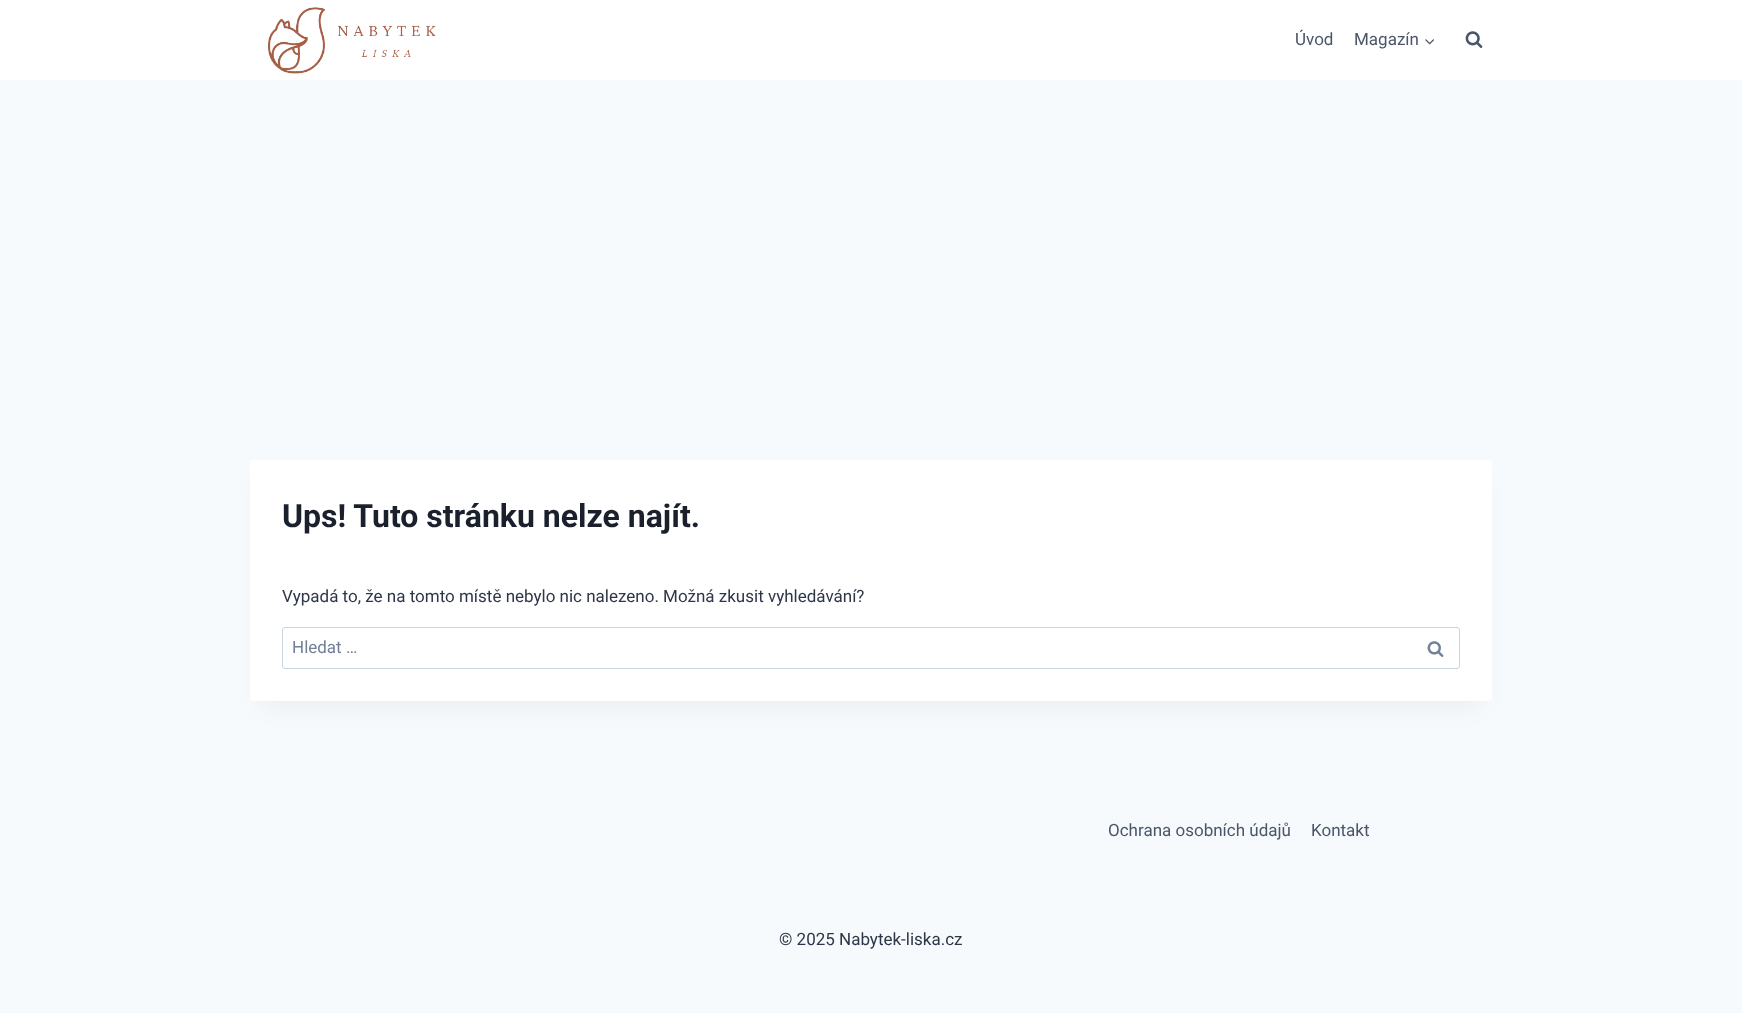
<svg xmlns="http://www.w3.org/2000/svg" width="1742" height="1013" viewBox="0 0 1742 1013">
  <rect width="100%" height="100%" fill="#f7fafc"/>
  <path d="M0 0h1742v80H0z" fill="#fff"/>
  <image x="268" y="7" width="168" height="67" href="img/1.png"/>
  <image x="1425" y="39" width="10" height="6" href="img/2.png"/>
  <image x="1465" y="31" width="18" height="17" href="img/3.png"/>
  <path d="M260 485h1222v221H260z" fill="#0000000d" filter="blur(12.5px)"/>
  <rect x="250" y="460" width="1242" height="241" rx="4" fill="#fff"/>
  <rect x="282.5" y="627.5" width="1177" height="41" rx="2.5" fill="none" stroke="#cbd5e0"/>
  <image x="1427" y="641" width="17" height="16" href="img/4.png"/>
  <g font-family="Roboto" font-size="17" fill="#4a5568">
    <text x="1295" y="45">Úvod</text>
    <text x="1354" y="45">Magazín</text>
  </g>
  <text x="282" y="527" font-family="Roboto" font-size="32" font-weight="bold" fill="#1a202c">Ups! Tuto stránku nelze najít.</text>
  <text x="282" y="602" font-family="Roboto" font-size="17" fill="#2d3748">Vypadá to, že na tomto místě nebylo nic nalezeno. Možná zkusit vyhledávání?</text>
  <text x="292" y="653" font-family="Roboto" font-size="17" fill="#718096">Hledat …</text>
  <g font-family="Roboto" font-size="17" fill="#4a5568">
    <text x="1108" y="836">Ochrana osobních údajů</text>
    <text x="1311" y="836">Kontakt</text>
  </g>
  <text x="779" y="945" font-family="Roboto" font-size="17" fill="#2d3748">© 2025 Nabytek-liska.cz</text>
</svg>
